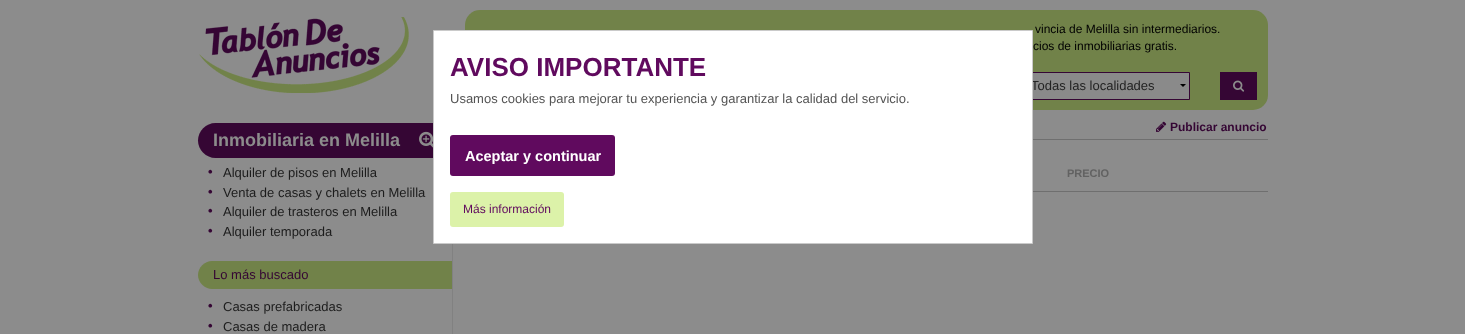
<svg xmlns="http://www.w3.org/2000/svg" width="1465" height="334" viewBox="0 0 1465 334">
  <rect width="100%" height="100%" fill="#8c8c8c"/>
  <image x="199" y="17" width="210" height="76" href="img/1.png"/>
  <rect x="465" y="10" width="803" height="100" rx="15" fill="#718249"/>
  <path d="M1033 73h156v26H1033z" fill="#8a8a8a"/>
  <path d="M1186 84L1183 87L1180 84Z" fill="#000"/>
  <path d="M1023.5 72.5h166v27H1023.5z" fill="none" stroke="#350634"/>
  <path d="M1220 72h37v28H1220z" fill="#350634"/>
  <image x="1233" y="80" width="12" height="12" href="img/2.png"/>
  <path d="M215.5 123H453V158H215.5C206 158 198 150 198 140.5C198 131 206 123 215.5 123Z" fill="#350634"/>
  <image x="419" y="131" width="14" height="17" href="img/3.png"/>
  <path d="M212 261H453V289H212C204.5 289 198 282.5 198 275C198 267.5 204.5 261 212 261Z" fill="#718249"/>
  <path d="M452 244h1v90H452z" fill="#818181"/>
  <image x="1156" y="121" width="11" height="11" href="img/4.png"/>
  <path d="M1033 139h235v1H1033z" fill="#6f6f6f"/>
  <path d="M1033 191h235v1H1033z" fill="#6f6f6f"/>
  <g font-family="Liberation Sans" font-size="12" fill="#000">
    <text x="1035" y="33">vincia de Melilla sin intermediarios.</text>
    <text x="1033" y="50">cios de inmobiliarias gratis.</text>
  </g>
  <text x="1031" y="90" font-family="Liberation Sans" font-size="13" fill="#232323">Todas las localidades</text>
  <text x="213" y="146" font-family="Liberation Sans" font-size="18" font-weight="bold" fill="#8c8c8c">Inmobiliaria en Melilla</text>
  <text x="208" y="176" font-family="Liberation Sans" font-size="13" font-weight="bold" fill="#350634">•</text>
  <text x="223" y="177" font-family="Liberation Sans" font-size="13" fill="#1c1c1c">Alquiler de pisos en Melilla</text>
  <text x="208" y="196" font-family="Liberation Sans" font-size="13" font-weight="bold" fill="#350634">•</text>
  <text x="223" y="197" font-family="Liberation Sans" font-size="13" fill="#1c1c1c">Venta de casas y chalets en Melilla</text>
  <text x="208" y="215" font-family="Liberation Sans" font-size="13" font-weight="bold" fill="#350634">•</text>
  <text x="223" y="216" font-family="Liberation Sans" font-size="13" fill="#1c1c1c">Alquiler de trasteros en Melilla</text>
  <text x="208" y="235" font-family="Liberation Sans" font-size="13" font-weight="bold" fill="#350634">•</text>
  <text x="223" y="236" font-family="Liberation Sans" font-size="13" fill="#1c1c1c">Alquiler temporada</text>
  <text x="213" y="279" font-family="Liberation Sans" font-size="13" fill="#350634">Lo más buscado</text>
  <text x="208" y="310" font-family="Liberation Sans" font-size="13" font-weight="bold" fill="#350634">•</text>
  <text x="223" y="311" font-family="Liberation Sans" font-size="13" fill="#1c1c1c">Casas prefabricadas</text>
  <text x="208" y="330" font-family="Liberation Sans" font-size="13" font-weight="bold" fill="#350634">•</text>
  <text x="223" y="331" font-family="Liberation Sans" font-size="13" fill="#1c1c1c">Casas de madera</text>
  <text x="1170" y="131" font-family="Liberation Sans" font-size="12" font-weight="bold" fill="#350634">Publicar anuncio</text>
  <text x="1067" y="177" font-family="Liberation Sans" font-size="11" font-weight="bold" fill="#626262">PRECIO</text>
  <path d="M433.5 30.5h599v213H433.5z" fill="#fff" stroke="#cacaca"/>
  <text x="450" y="76" font-family="Liberation Sans" font-size="26" font-weight="bold" fill="#600a5e">AVISO IMPORTANTE</text>
  <text x="450" y="103" font-family="Liberation Sans" font-size="13" fill="#545454">Usamos cookies para mejorar tu experiencia y garantizar la calidad del servicio.</text>
  <rect x="450" y="135" width="165" height="41" rx="3" fill="#600a5e"/>
  <text x="465" y="161" font-family="Liberation Sans" font-size="14.5" font-weight="bold" fill="#fff">Aceptar y continuar</text>
  <rect x="450" y="192" width="114" height="35" rx="3" fill="#dcf2a9"/>
  <text x="463" y="213" font-family="Liberation Sans" font-size="12" fill="#600a5e">Más información</text>
</svg>
